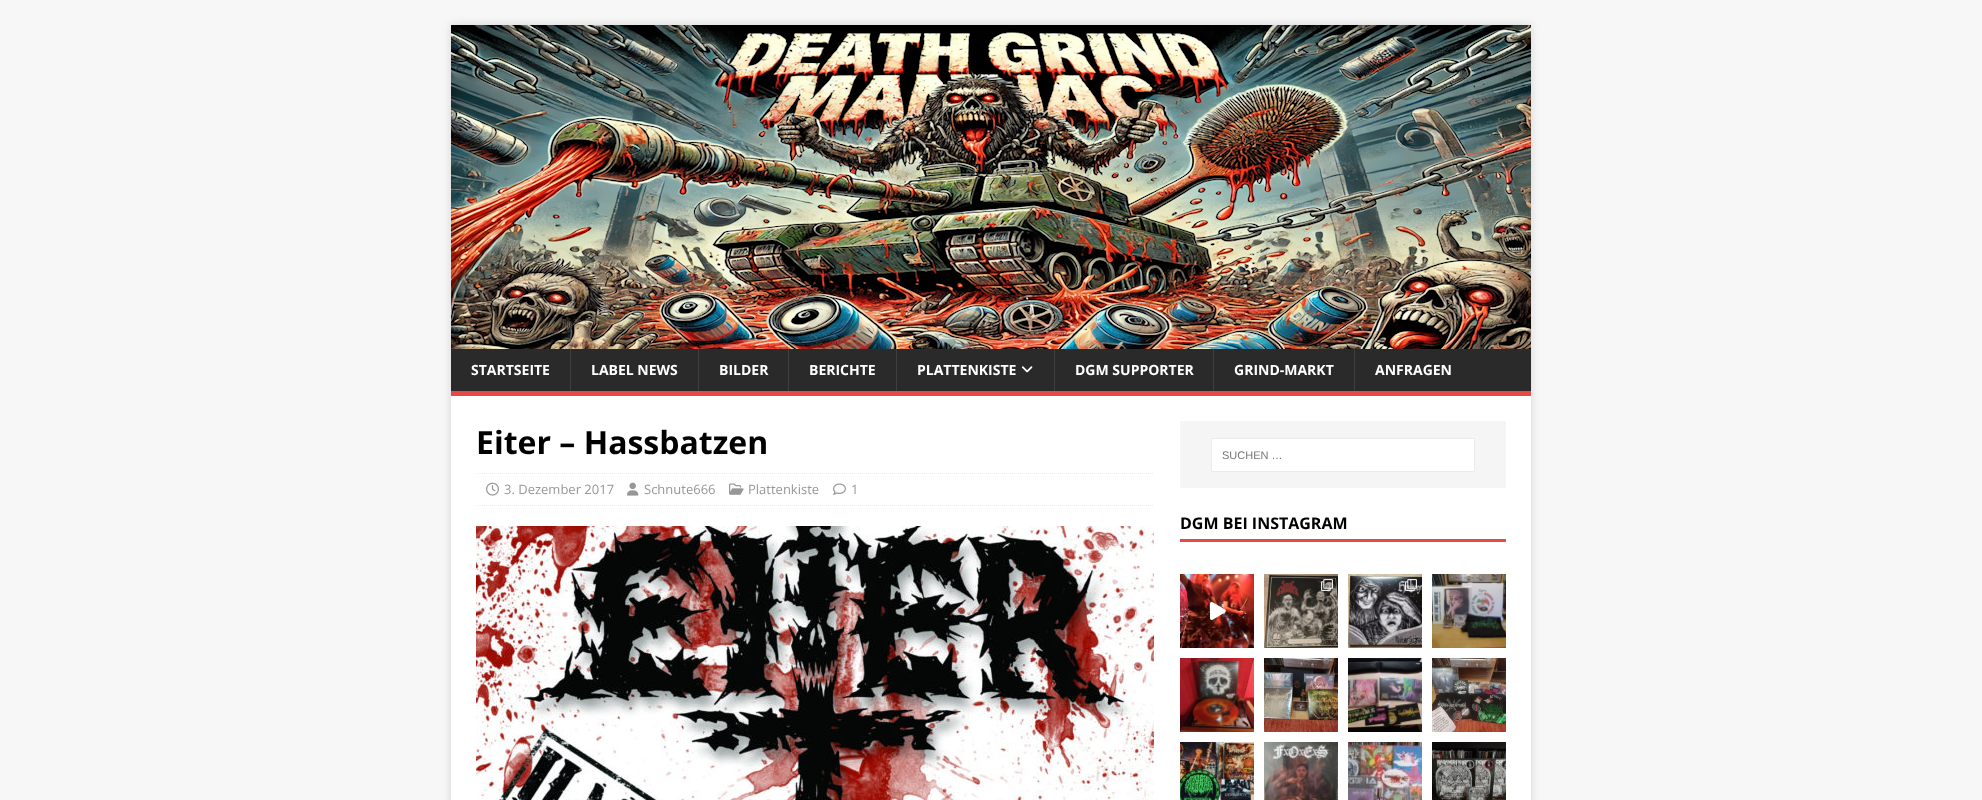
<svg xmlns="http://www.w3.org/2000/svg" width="1982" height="800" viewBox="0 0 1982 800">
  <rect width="100%" height="100%" fill="#f7f7f7"/>
  <path d="M451 25h1080v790H451z" fill="#3232322b" filter="blur(5px)"/>
  <image x="451" y="25" width="1080" height="324" href="img/1.png"/>
  <path d="M451 349h1080v42H451z" fill="#2a2a2a"/>
  <path d="M451 391h1080v5H451z" fill="#e64946"/>
  <path d="M570 349h1v42H570z" fill="#3f3f3f"/>
  <path d="M698 349h1v42H698z" fill="#3f3f3f"/>
  <path d="M788 349h1v42H788z" fill="#3f3f3f"/>
  <path d="M896 349h1v42H896z" fill="#3f3f3f"/>
  <image x="1021" y="366" width="12" height="7" href="img/2.png"/>
  <path d="M1054 349h1v42H1054z" fill="#3f3f3f"/>
  <path d="M1213 349h1v42H1213z" fill="#3f3f3f"/>
  <path d="M1354 349h1v42H1354z" fill="#3f3f3f"/>
  <path d="M451 396h1080v404H451z" fill="#fff"/>
  <path d="M476 473.5H1154" fill="none" stroke="#ebebeb" stroke-dasharray="1 1"/>
  <path d="M476 505.5H1154" fill="none" stroke="#ebebeb" stroke-dasharray="1 1"/>
  <image x="486" y="482" width="13" height="14" href="img/3.png"/>
  <image x="627" y="482" width="12" height="14" href="img/4.png"/>
  <image x="729" y="483" width="15" height="12" href="img/5.png"/>
  <image x="833" y="483" width="13" height="12" href="img/6.png"/>
  <image x="476" y="526" width="678" height="274" href="img/7.png"/>
  <path d="M1180 421h326v67H1180z" fill="#f5f5f5"/>
  <path d="M1211.5 438.5h263v33H1211.5z" fill="#fff" stroke="#ebebeb"/>
  <path d="M1180 539h326v3H1180z" fill="#e64946"/>
  <image x="1180" y="574" width="74" height="74" href="img/8.png"/>
  <image x="1210" y="602" width="16" height="18" href="img/9.png"/>
  <image x="1264" y="574" width="74" height="74" href="img/10.png"/>
  <image x="1321" y="579" width="12" height="12" href="img/11.png"/>
  <image x="1348" y="574" width="74" height="74" href="img/12.png"/>
  <image x="1405" y="579" width="12" height="12" href="img/13.png"/>
  <image x="1432" y="574" width="74" height="74" href="img/14.png"/>
  <image x="1180" y="658" width="74" height="74" href="img/15.png"/>
  <image x="1264" y="658" width="74" height="74" href="img/16.png"/>
  <image x="1348" y="658" width="74" height="74" href="img/17.png"/>
  <image x="1432" y="658" width="74" height="74" href="img/18.png"/>
  <image x="1180" y="742" width="74" height="58" href="img/19.png"/>
  <image x="1264" y="742" width="74" height="58" href="img/20.png"/>
  <image x="1348" y="742" width="74" height="58" href="img/21.png"/>
  <image x="1432" y="742" width="74" height="58" href="img/22.png"/>
  <g font-family="Open Sans" font-size="14" font-weight="bold" fill="#fff">
    <text x="471" y="375">STARTSEITE</text>
    <text x="591" y="375">LABEL NEWS</text>
    <text x="719" y="375">BILDER</text>
    <text x="809" y="375">BERICHTE</text>
    <text x="917" y="375">PLATTENKISTE</text>
    <text x="1075" y="375">DGM SUPPORTER</text>
    <text x="1234" y="375">GRIND-MARKT</text>
    <text x="1375" y="375">ANFRAGEN</text>
  </g>
  <text x="476" y="454" font-family="Open Sans" font-size="32" font-weight="bold" fill="#000">Eiter – Hassbatzen</text>
  <g font-family="Open Sans" font-size="13" fill="#979797">
    <text x="504" y="494">3. Dezember 2017</text>
    <text x="644" y="494">Schnute666</text>
    <text x="748" y="494">Plattenkiste</text>
    <text x="851" y="494">1</text>
  </g>
  <text x="1222" y="459" font-family="Liberation Sans" font-size="11" fill="#757575">SUCHEN …</text>
  <text x="1180" y="529" font-family="Open Sans" font-size="16" font-weight="bold" fill="#000">DGM BEI INSTAGRAM</text>
</svg>
